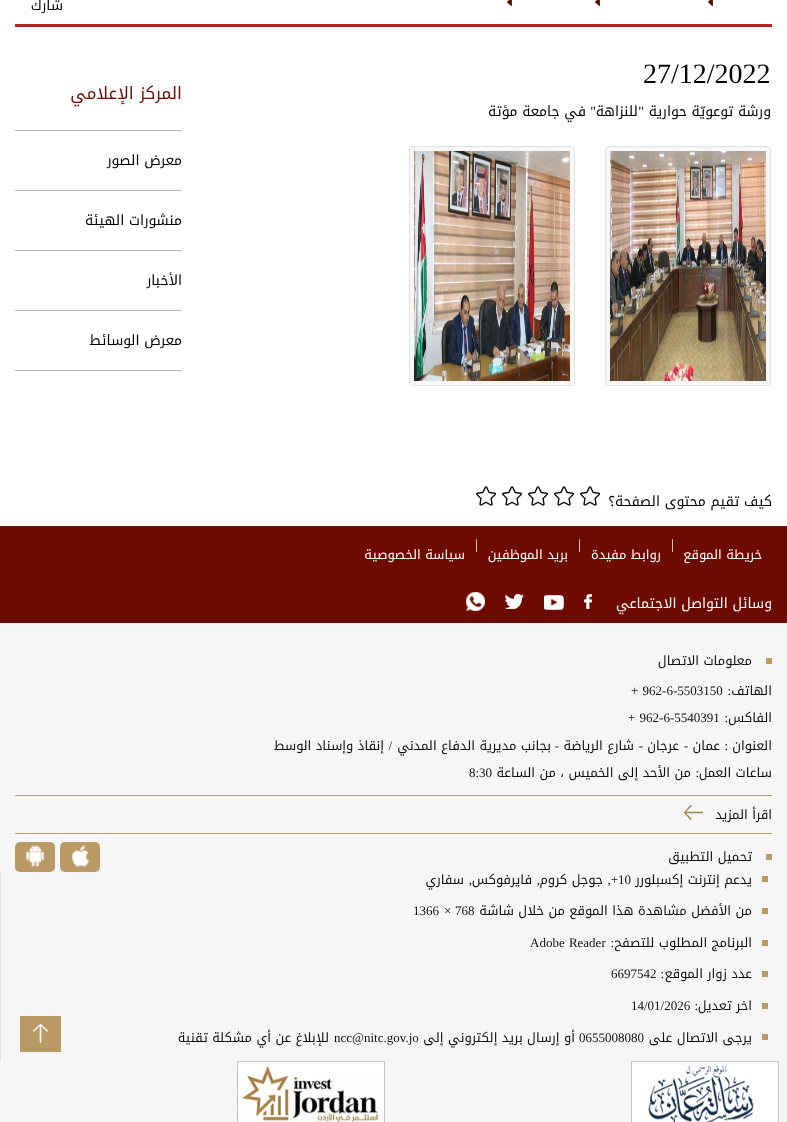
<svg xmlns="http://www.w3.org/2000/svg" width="787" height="1122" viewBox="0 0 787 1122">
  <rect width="100%" height="100%" fill="#fff"/>
  <image x="708" y="0" width="5" height="6" href="img/1.png"/>
  <image x="595" y="0" width="5" height="6" href="img/1.png"/>
  <image x="507" y="0" width="5" height="6" href="img/1.png"/>
  <path d="M15 24h757v3H15z" fill="#be2025"/>
  <rect x="605.5" y="146.5" width="165" height="239" rx="3.5" fill="#f7f7f7" stroke="#dee2e6"/>
  <image x="610" y="151" width="156" height="230" href="img/2.png"/>
  <rect x="409.5" y="146.5" width="165" height="239" rx="3.5" fill="#f7f7f7" stroke="#dee2e6"/>
  <image x="414" y="151" width="156" height="230" href="img/3.png"/>
  <path d="M15 130h167v1H15z" fill="#b7b7b7"/>
  <path d="M15 190h167v1H15z" fill="#b7b7b7"/>
  <path d="M15 250h167v1H15z" fill="#b7b7b7"/>
  <path d="M15 310h167v1H15z" fill="#b7b7b7"/>
  <path d="M15 370h167v1H15z" fill="#b7b7b7"/>
  <image x="580" y="486" width="20" height="20" href="img/4.png"/>
  <image x="554" y="486" width="20" height="20" href="img/4.png"/>
  <image x="528" y="486" width="20" height="20" href="img/4.png"/>
  <image x="502" y="486" width="20" height="20" href="img/4.png"/>
  <image x="476" y="486" width="20" height="20" href="img/4.png"/>
  <path d="M0 526h787v97H0z" fill="#6d0b00"/>
  <image x="584" y="594" width="8" height="15" href="img/5.png"/>
  <image x="544" y="595" width="20" height="15" href="img/6.png"/>
  <image x="505" y="594" width="19" height="15" href="img/7.png"/>
  <image x="466" y="592" width="19" height="19" href="img/8.png"/>
  <path d="M0 623h787v499H0z" fill="#f6f6f6"/>
  <path d="M766 658h6v6H766z" fill="#b99a64"/>
  <path d="M15 795h757v1H15z" fill="#b99a64"/>
  <path d="M15 833h757v1H15z" fill="#b99a64"/>
  <image x="684" y="805" width="19" height="15" href="img/9.png"/>
  <path d="M766 854h6v6H766z" fill="#b99a64"/>
  <rect x="60" y="842" width="40" height="30" rx="5" fill="#b99a64"/>
  <image x="72" y="845" width="18" height="22" href="img/10.png"/>
  <rect x="15" y="842" width="40" height="30" rx="5" fill="#b99a64"/>
  <image x="26" y="844" width="19" height="23" href="img/11.png"/>
  <path d="M0 872h1v189H0z" fill="#dee2e6"/>
  <path d="M762 876h6v6H762z" fill="#b99a64"/>
  <path d="M762 908h6v6H762z" fill="#b99a64"/>
  <path d="M762 940h6v6H762z" fill="#b99a64"/>
  <path d="M762 971h6v6H762z" fill="#b99a64"/>
  <path d="M762 1003h6v6H762z" fill="#b99a64"/>
  <path d="M762 1034h6v6H762z" fill="#b99a64"/>
  <image x="631" y="1061" width="148" height="61" href="img/12.png"/>
  <image x="237" y="1061" width="148" height="61" href="img/13.png"/>
  <path d="M20 1016h41v36H20z" fill="#b99a64"/>
  <image x="33" y="1024" width="15" height="19" href="img/14.png"/>
  <text x="63" y="10" font-family="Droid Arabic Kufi" font-size="14" direction="rtl" fill="#000">شارك</text>
  <text x="643" y="83" font-family="Liberation Serif" font-size="28" fill="#000">27/12/2022</text>
  <text x="771" y="116" font-family="Droid Arabic Kufi" font-size="14" direction="rtl" fill="#000">ورشة توعويّة حوارية</text>
  <text x="644" y="116" font-family="Liberation Serif" font-size="14" direction="rtl" fill="#000">"</text>
  <text x="638" y="116" font-family="Droid Arabic Kufi" font-size="14" direction="rtl" fill="#000">للنزاهة</text>
  <text x="596" y="116" font-family="Liberation Serif" font-size="14" direction="rtl" fill="#000">"</text>
  <text x="586" y="116" font-family="Droid Arabic Kufi" font-size="14" direction="rtl" fill="#000">في جامعة مؤتة</text>
  <text x="182" y="99" font-family="Droid Arabic Kufi" font-size="17" direction="rtl" fill="#6d0b00">المركز الإعلامي</text>
  <g font-family="Droid Arabic Kufi" font-size="14" direction="rtl" fill="#000">
    <text x="182" y="165">معرض الصور</text>
    <text x="182" y="225">منشورات الهيئة</text>
    <text x="182" y="285">الأخبار</text>
    <text x="182" y="345">معرض الوسائط</text>
    <text x="772" y="506">كيف تقيم محتوى الصفحة؟</text>
  </g>
  <text x="671" y="549" font-family="Liberation Serif" font-size="14" fill="#fff">|</text>
  <text x="762" y="559" font-family="Droid Arabic Kufi" font-size="13" direction="rtl" fill="#fff">خريطة الموقع</text>
  <text x="578" y="549" font-family="Liberation Serif" font-size="14" fill="#fff">|</text>
  <text x="661" y="559" font-family="Droid Arabic Kufi" font-size="13" direction="rtl" fill="#fff">روابط مفيدة</text>
  <text x="475" y="549" font-family="Liberation Serif" font-size="14" fill="#fff">|</text>
  <g font-family="Droid Arabic Kufi" font-size="13" direction="rtl" fill="#fff">
    <text x="568" y="559">بريد الموظفين</text>
    <text x="465" y="559">سياسة الخصوصية</text>
  </g>
  <text x="772" y="608" font-family="Droid Arabic Kufi" font-size="14" direction="rtl" fill="#fff">وسائل التواصل الاجتماعي</text>
  <g font-family="Droid Arabic Kufi" font-size="13" direction="rtl" fill="#101010">
    <text x="752" y="665">معلومات الاتصال</text>
    <text x="772" y="695">الهاتف</text>
  </g>
  <text x="731" y="695" font-family="Liberation Serif" font-size="13" direction="rtl" fill="#101010">:</text>
  <text x="631" y="695" word-spacing="1" font-family="Liberation Serif" font-size="13" fill="#101010">+ 962-6-5503150</text>
  <text x="772" y="722" font-family="Droid Arabic Kufi" font-size="13" direction="rtl" fill="#101010">الفاكس</text>
  <text x="728" y="722" font-family="Liberation Serif" font-size="13" direction="rtl" fill="#101010">:</text>
  <text x="628" y="722" word-spacing="1" font-family="Liberation Serif" font-size="13" fill="#101010">+ 962-6-5540391</text>
  <text x="772" y="750" font-family="Droid Arabic Kufi" font-size="13" direction="rtl" fill="#101010">العنوان</text>
  <text x="728" y="750" font-family="Liberation Serif" font-size="13" direction="rtl" fill="#101010">:</text>
  <text x="720" y="750" font-family="Droid Arabic Kufi" font-size="13" direction="rtl" fill="#101010">عمان</text>
  <text x="688" y="750" font-family="Liberation Serif" font-size="13" direction="rtl" fill="#101010">-</text>
  <text x="679" y="750" font-family="Droid Arabic Kufi" font-size="13" direction="rtl" fill="#101010">عرجان</text>
  <text x="643" y="750" font-family="Liberation Serif" font-size="13" direction="rtl" fill="#101010">-</text>
  <text x="634" y="750" font-family="Droid Arabic Kufi" font-size="13" direction="rtl" fill="#101010">شارع الرياضة</text>
  <text x="559" y="750" font-family="Liberation Serif" font-size="13" direction="rtl" fill="#101010">-</text>
  <text x="551" y="750" font-family="Droid Arabic Kufi" font-size="13" direction="rtl" fill="#101010">بجانب مديرية الدفاع المدني</text>
  <text x="392" y="750" font-family="Liberation Serif" font-size="13" direction="rtl" fill="#101010">/</text>
  <g font-family="Droid Arabic Kufi" font-size="13" direction="rtl" fill="#101010">
    <text x="384" y="750">إنقاذ وإسناد الوسط</text>
    <text x="772" y="777">ساعات العمل</text>
  </g>
  <text x="699" y="777" font-family="Liberation Serif" font-size="13" direction="rtl" fill="#101010">:</text>
  <text x="691" y="777" font-family="Droid Arabic Kufi" font-size="13" direction="rtl" fill="#101010">من الأحد إلى الخميس ، من الساعة</text>
  <text x="469" y="777" font-family="Liberation Serif" font-size="13" fill="#101010">8:30</text>
  <g font-family="Droid Arabic Kufi" font-size="13" direction="rtl" fill="#101010">
    <text x="772" y="819">اقرأ المزيد</text>
    <text x="752" y="861">تحميل التطبيق</text>
    <text x="752" y="884">يدعم إنترنت إكسبلورر</text>
  </g>
  <text x="618" y="884" font-family="Liberation Serif" font-size="13" fill="#101010">10</text>
  <text x="618" y="884" font-family="Liberation Serif" font-size="13" direction="rtl" fill="#101010">+,</text>
  <g font-family="Droid Arabic Kufi" font-size="13" direction="rtl" fill="#101010">
    <text x="603" y="884">جوجل كروم</text>
    <text x="532" y="884">فايرفوكس</text>
    <text x="464" y="884">سفاري</text>
  </g>
  <g font-family="Liberation Serif" font-size="13" direction="rtl" fill="#101010">
    <text x="540" y="884">,</text>
    <text x="472" y="884">,</text>
  </g>
  <text x="752" y="915" font-family="Droid Arabic Kufi" font-size="13" direction="rtl" fill="#101010">من الأفضل مشاهدة هذا الموقع من خلال شاشة</text>
  <g font-family="Liberation Serif" font-size="13" fill="#101010">
    <text x="455" y="915">768</text>
    <text x="444" y="915">×</text>
    <text x="413" y="915">1366</text>
  </g>
  <text x="752" y="947" font-family="Droid Arabic Kufi" font-size="13" direction="rtl" fill="#101010">البرنامج المطلوب للتصفح</text>
  <text x="614" y="947" font-family="Liberation Serif" font-size="13" direction="rtl" fill="#101010">:</text>
  <text x="530" y="947" word-spacing="1" font-family="Liberation Serif" font-size="13" fill="#101010">Adobe Reader</text>
  <text x="752" y="978" font-family="Droid Arabic Kufi" font-size="13" direction="rtl" fill="#101010">عدد زوار الموقع</text>
  <text x="664" y="978" font-family="Liberation Serif" font-size="13" direction="rtl" fill="#101010">:</text>
  <text x="611" y="978" font-family="Liberation Serif" font-size="13" fill="#101010">6697542</text>
  <text x="752" y="1010" font-family="Droid Arabic Kufi" font-size="13" direction="rtl" fill="#101010">اخر تعديل</text>
  <text x="698" y="1010" font-family="Liberation Serif" font-size="13" direction="rtl" fill="#101010">:</text>
  <text x="631" y="1010" font-family="Liberation Serif" font-size="13" fill="#101010">14/01/2026</text>
  <text x="752" y="1042" font-family="Droid Arabic Kufi" font-size="13" direction="rtl" fill="#101010">يرجى الاتصال على</text>
  <text x="579" y="1042" font-family="Liberation Serif" font-size="13" fill="#101010">0655008080</text>
  <text x="575" y="1042" font-family="Droid Arabic Kufi" font-size="13" direction="rtl" fill="#101010">أو إرسال بريد إلكتروني إلى</text>
  <text x="334" y="1042" font-family="Liberation Serif" font-size="13" fill="#101010">ncc@nitc.gov.jo</text>
  <text x="329" y="1042" font-family="Droid Arabic Kufi" font-size="13" direction="rtl" fill="#101010">للإبلاغ عن أي مشكلة تقنية</text>
</svg>
